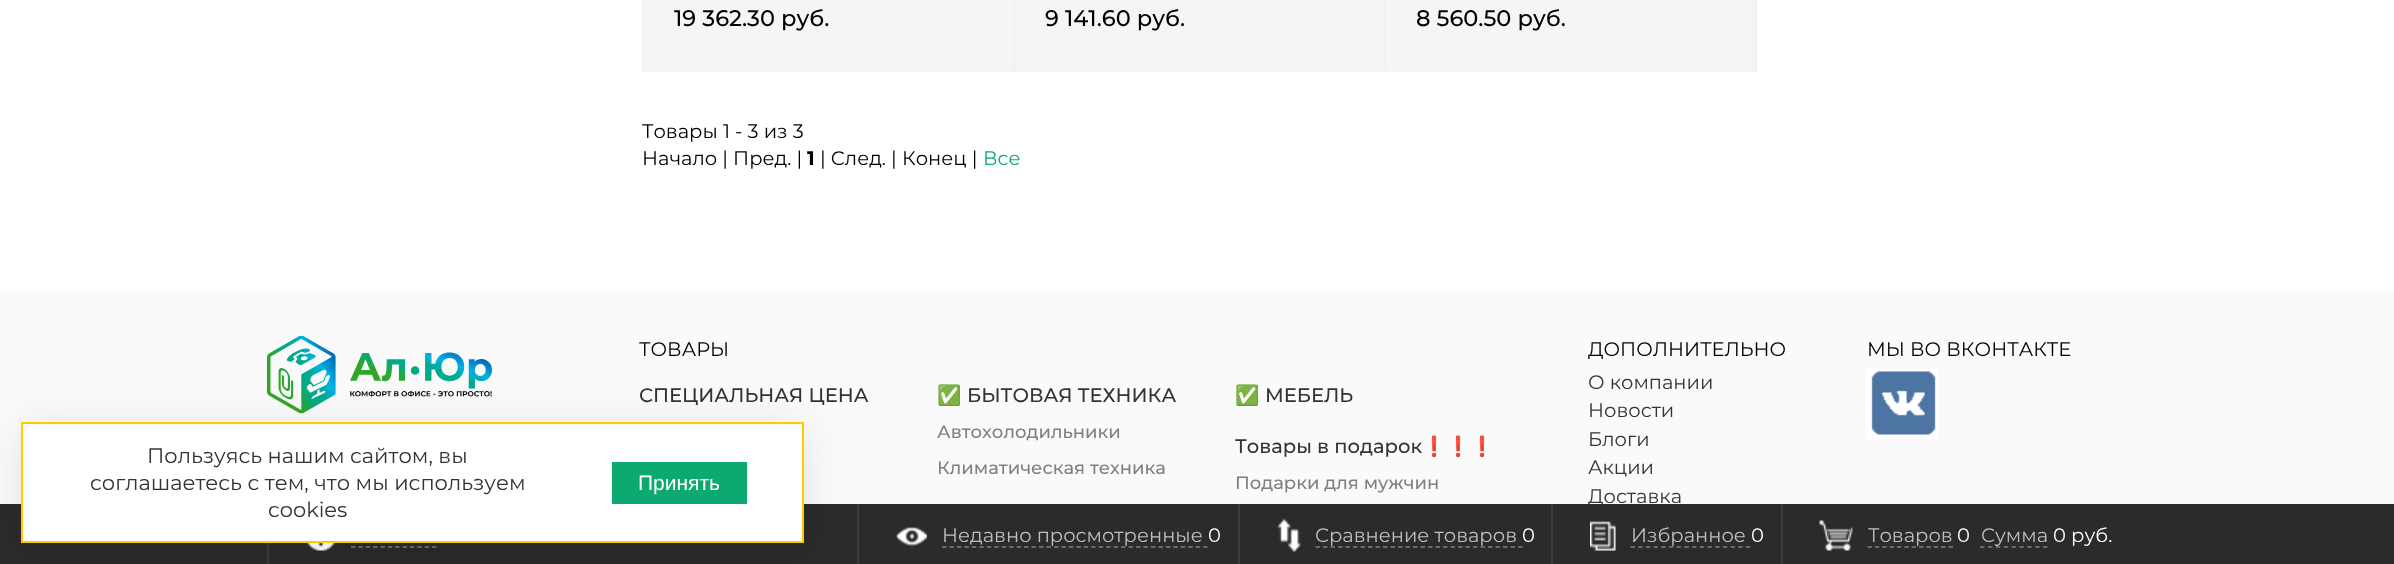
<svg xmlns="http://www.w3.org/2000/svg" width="2394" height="564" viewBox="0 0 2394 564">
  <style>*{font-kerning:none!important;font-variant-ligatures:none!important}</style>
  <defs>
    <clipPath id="clip1"><path d="M938 383h283v24H938z"/></clipPath>
    <clipPath id="clip2"><path d="M1236 383h282v24H1236z"/></clipPath>
  </defs>
  <rect width="100%" height="100%" fill="#fff"/>
  <path d="M643 -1h370v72H643z" fill="none" stroke="#f2f2f2" stroke-width="2"/>
  <path d="M644 0h369v71H644z" fill="#f5f5f5"/>
  <path d="M1015 -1h369v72H1015z" fill="none" stroke="#f2f2f2" stroke-width="2"/>
  <path d="M1016 0h367v71H1016z" fill="#f5f5f5"/>
  <path d="M1386 -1h370v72H1386z" fill="none" stroke="#f2f2f2" stroke-width="2"/>
  <path d="M1386 0h369v71H1386z" fill="#f5f5f5"/>
  <path d="M0 291h2394v213H0z" fill="#fafafa"/>
  <image x="267" y="336" width="225" height="78" href="img/1.png"/>
  <image x="1866" y="369" width="72" height="70" href="img/2.png"/>
  <g font-family="Montserrat" font-size="22.5" font-weight="500" fill="#000">
    <text x="674" y="26">19 362.30 руб.</text>
    <text x="1045" y="26">9 141.60 руб.</text>
    <text x="1416" y="26">8 560.50 руб.</text>
  </g>
  <g font-family="Montserrat" font-size="19.5" fill="#000">
    <text x="642" y="138">Товары 1 - 3 из 3</text>
    <text x="642" y="165">Начало | Пред. |</text>
  </g>
  <text x="807" y="165" font-family="Montserrat" font-size="19.5" font-weight="bold" fill="#000">1</text>
  <text x="820" y="165" font-family="Montserrat" font-size="19.5" fill="#000">| След. | Конец |</text>
  <text x="983" y="165" font-family="Montserrat" font-size="19.5" fill="#0caa71">Все</text>
  <text x="639" y="356" font-family="Montserrat" font-size="19.5" fill="#000">ТОВАРЫ</text>
  <text x="639" y="402" font-family="Montserrat" font-size="19.5" font-weight="500" fill="#333">СПЕЦИАЛЬНАЯ ЦЕНА</text>
  <g clip-path="url(#clip1)">
    <text x="937" y="402" font-family="Noto Color Emoji" font-size="19.5" fill="#333">✅</text>
  </g>
  <text x="967" y="402" font-family="Montserrat" font-size="19.5" font-weight="500" fill="#333">БЫТОВАЯ ТЕХНИКА</text>
  <g font-family="Montserrat" font-size="18" font-weight="500" fill="#808080">
    <text x="937" y="438">Автохолодильники</text>
    <text x="937" y="474">Климатическая техника</text>
  </g>
  <g clip-path="url(#clip2)">
    <text x="1235" y="402" font-family="Noto Color Emoji" font-size="19.5" fill="#333">✅</text>
  </g>
  <g font-family="Montserrat" font-size="19.5" font-weight="500" fill="#333">
    <text x="1265" y="402">МЕБЕЛЬ</text>
    <text x="1235" y="453">Товары в подарок</text>
  </g>
  <text x="1422" y="453" font-family="Noto Color Emoji" font-size="19.5" fill="#333">❗❗❗</text>
  <text x="1235" y="489" font-family="Montserrat" font-size="18" font-weight="500" fill="#808080">Подарки для мужчин</text>
  <text x="1588" y="356" font-family="Montserrat" font-size="19.5" fill="#000">ДОПОЛНИТЕЛЬНО</text>
  <g font-family="Montserrat" font-size="19.5" fill="#333">
    <text x="1588" y="389">О компании</text>
    <text x="1588" y="417">Новости</text>
    <text x="1588" y="446">Блоги</text>
    <text x="1588" y="474">Акции</text>
    <text x="1588" y="503">Доставка</text>
  </g>
  <text x="1867" y="356" font-family="Montserrat" font-size="19.5" fill="#000">МЫ ВО ВКОНТАКТЕ</text>
  <path d="M0 504h2394v60H0z" fill="#2b2b2b"/>
  <path d="M857 504h2v60H857z" fill="#3c3c3c"/>
  <image x="895" y="527" width="32" height="20" href="img/3.png"/>
  <text x="942" y="542" font-family="Montserrat" font-size="19.5" fill="#bfbfbf">Недавно просмотренные</text>
  <path d="M942 547H1207.5" fill="none" stroke="#7e7e7e" stroke-width="1.5" stroke-dasharray="4.5 2.96"/>
  <text x="1208" y="542" font-family="Montserrat" font-size="19.5" fill="#fff">0</text>
  <path d="M1238 504h2v60H1238z" fill="#3c3c3c"/>
  <image x="1277" y="518" width="24" height="34" href="img/4.png"/>
  <text x="1315" y="542" font-family="Montserrat" font-size="19.5" fill="#bfbfbf">Сравнение товаров</text>
  <path d="M1315.5 547H1522.5" fill="none" stroke="#7e7e7e" stroke-width="1.5" stroke-dasharray="4.5 3"/>
  <text x="1522" y="542" font-family="Montserrat" font-size="19.5" fill="#fff">0</text>
  <path d="M1551 504h2v60H1551z" fill="#3c3c3c"/>
  <image x="1590" y="521" width="26" height="30" href="img/5.png"/>
  <text x="1631" y="542" font-family="Montserrat" font-size="19.5" fill="#bfbfbf">Избранное</text>
  <path d="M1630.5 547H1750.5" fill="none" stroke="#7e7e7e" stroke-width="1.5" stroke-dasharray="4.5 3.19"/>
  <text x="1751" y="542" font-family="Montserrat" font-size="19.5" fill="#fff">0</text>
  <path d="M1781 504h2v60H1781z" fill="#3c3c3c"/>
  <image x="1819" y="520" width="34" height="31" href="img/6.png"/>
  <text x="1868" y="542" font-family="Montserrat" font-size="19.5" fill="#bfbfbf">Товаров</text>
  <path d="M1867.5 547H1953" fill="none" stroke="#7e7e7e" stroke-width="1.5" stroke-dasharray="4.5 2.86"/>
  <text x="1957" y="542" font-family="Montserrat" font-size="19.5" fill="#fff">0</text>
  <text x="1981" y="542" font-family="Montserrat" font-size="19.5" fill="#bfbfbf">Сумма</text>
  <path d="M1980 547H2047.5" fill="none" stroke="#7e7e7e" stroke-width="1.5" stroke-dasharray="4.5 3.38"/>
  <text x="2053" y="542" font-family="Montserrat" font-size="19.5" fill="#fff">0 руб.</text>
  <path d="M267 543h2v21H267z" fill="#3c3c3c"/>
  <image x="307" y="543" width="28" height="8" href="img/7.png"/>
  <path d="M351 547H436.5" fill="none" stroke="#7e7e7e" stroke-width="1.5" stroke-dasharray="4.5 2.86"/>
  <path d="M23 429h780v119H23z" fill="#0000001a" filter="blur(22.5px)"/>
  <path d="M23 424h779v117H23z" fill="#fff"/>
  <path d="M612 462h135v42H612z" fill="#0caa71"/>
  <path d="M22 423h781v119H22z" fill="none" stroke="#fc0" stroke-width="2"/>
  <text x="638" y="490" font-family="Liberation Sans" font-size="21" fill="#fff">Принять</text>
  <g font-family="Montserrat" font-size="21" fill="#333">
    <text x="268" y="517">cookies</text>
    <text x="90" y="490">соглашаетесь с тем, что мы используем</text>
    <text x="147" y="463">Пользуясь нашим сайтом, вы</text>
  </g>
</svg>
